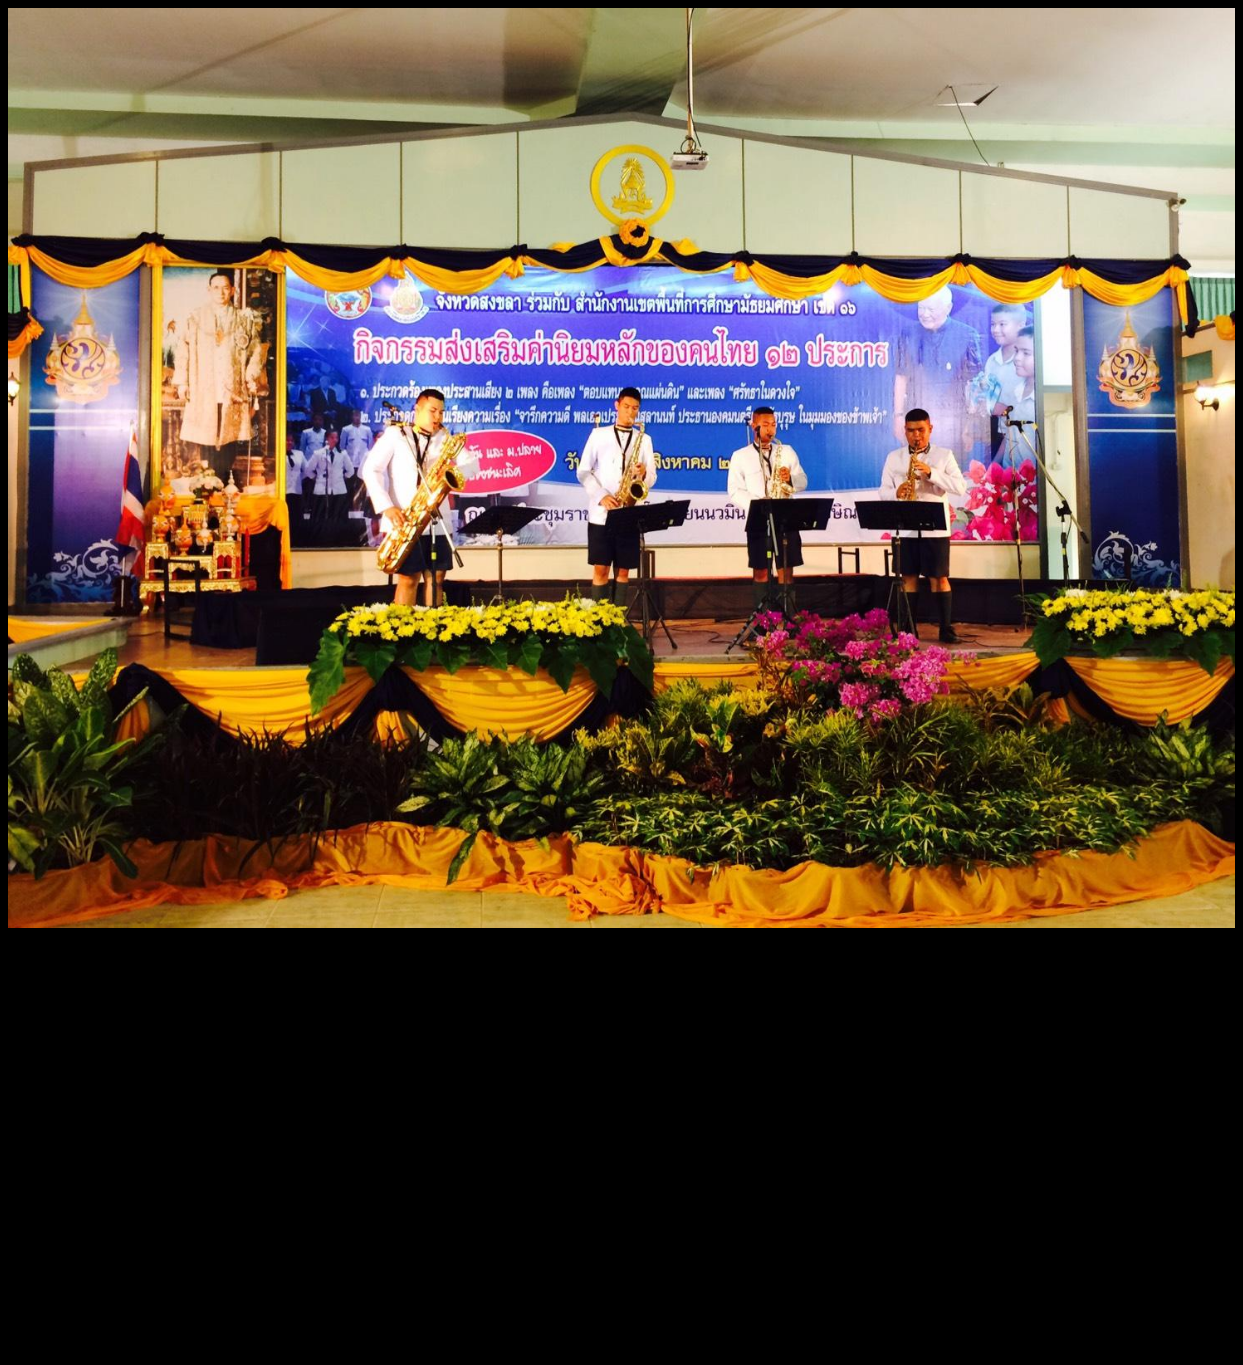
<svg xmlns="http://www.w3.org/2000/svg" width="1243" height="1365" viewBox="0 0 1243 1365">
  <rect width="100%" height="100%" fill="#000"/>
  <image x="8" y="8" width="1227" height="920" href="img/1.png"/>
</svg>
